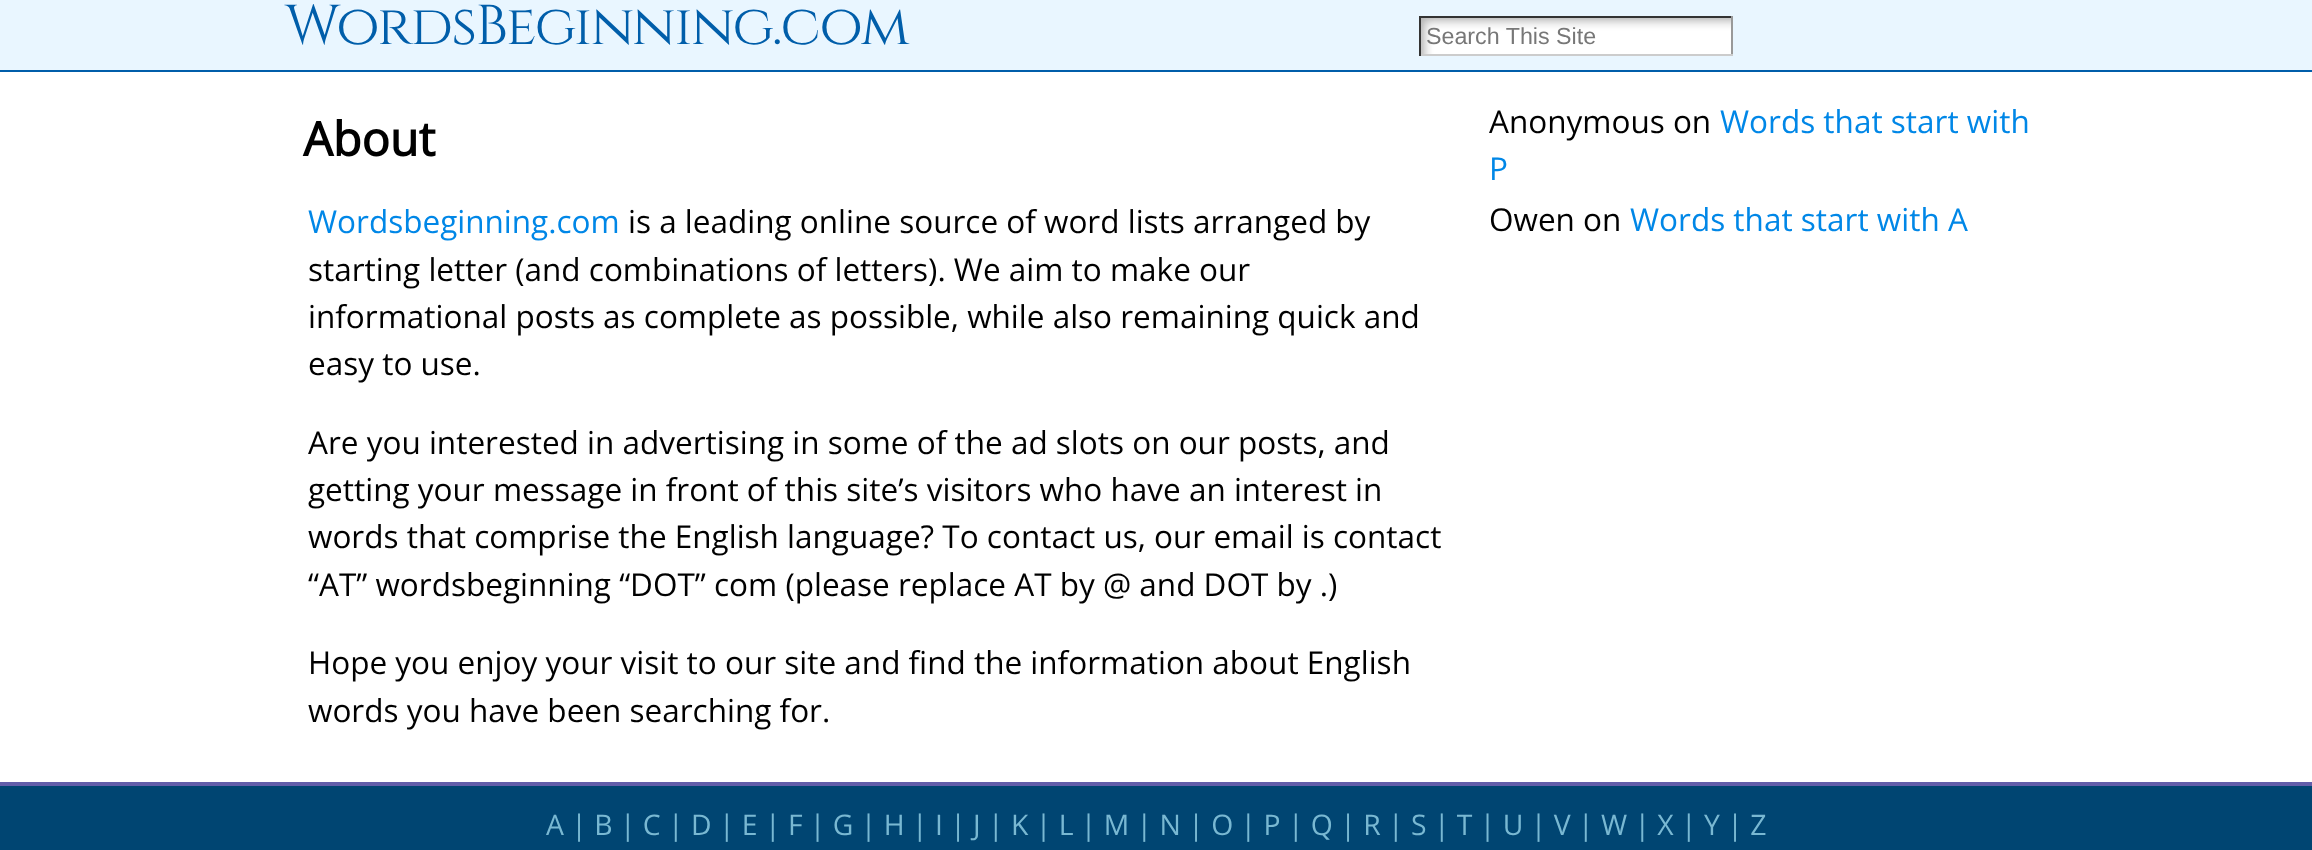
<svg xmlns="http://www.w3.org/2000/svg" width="2312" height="850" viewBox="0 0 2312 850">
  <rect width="100%" height="100%" fill="#fff"/>
  <path d="M0 0h2312v70H0z" fill="#e9f6ff"/>
  <image x="1421" y="18" width="310" height="36" href="img/1.png"/>
  <path d="M1419 16h314v2H1419z" fill="#333"/>
  <path d="M1731 16h2v40H1731z" fill="#999"/>
  <path d="M1419 54h314v2H1419z" fill="#ccc"/>
  <path d="M1419 16h2v40H1419z" fill="#333"/>
  <path d="M0 70h2312v2H0z" fill="#005eaa"/>
  <path d="M0 786h2312v64H0z" fill="#004572"/>
  <path d="M0 782h2312v4H0z" fill="#625da9"/>
  <text x="285" y="44" font-family="Cinzel" font-size="56" letter-spacing="-1.75" fill="#005eaa">WordsBeginning.com</text>
  <text x="1426" y="44" font-family="Liberation Sans" font-size="23.25" fill="#777">Search This Site</text>
  <text x="303" y="156" font-family="Open Sans" font-size="47" font-weight="bold" fill="#000">About</text>
  <text x="308" y="233" font-family="Open Sans" font-size="31.5" fill="#0087e7">Wordsbeginning.com</text>
  <g font-family="Open Sans" font-size="31.5" fill="#000">
    <text x="628" y="233">is a leading online source of word lists arranged by</text>
    <text x="308" y="281">starting letter (and combinations of letters). We aim to make our</text>
    <text x="308" y="328">informational posts as complete as possible, while also remaining quick and</text>
    <text x="308" y="375">easy to use.</text>
    <text x="308" y="454">Are you interested in advertising in some of the ad slots on our posts, and</text>
    <text x="308" y="501">getting your message in front of this site’s visitors who have an interest in</text>
    <text x="308" y="548">words that comprise the English language? To contact us, our email is contact</text>
    <text x="308" y="596">“AT” wordsbeginning “DOT” com (please replace AT by @ and DOT by .)</text>
    <text x="308" y="674">Hope you enjoy your visit to our site and find the information about English</text>
    <text x="308" y="722">words you have been searching for.</text>
    <text x="1489" y="133">Anonymous on</text>
  </g>
  <g font-family="Open Sans" font-size="31.5" fill="#0087e7">
    <text x="1720" y="133">Words that start with</text>
    <text x="1489" y="180">P</text>
  </g>
  <text x="1489" y="231" font-family="Open Sans" font-size="31.5" fill="#000">Owen on</text>
  <text x="1630" y="231" font-family="Open Sans" font-size="31.5" fill="#0087e7">Words that start with A</text>
  <text x="546" y="835" font-family="Open Sans" font-size="28.35" fill="#79b8d2">A | B | C | D | E | F | G | H | I | J | K | L | M | N | O | P | Q | R | S | T | U | V | W | X | Y | Z</text>
</svg>
